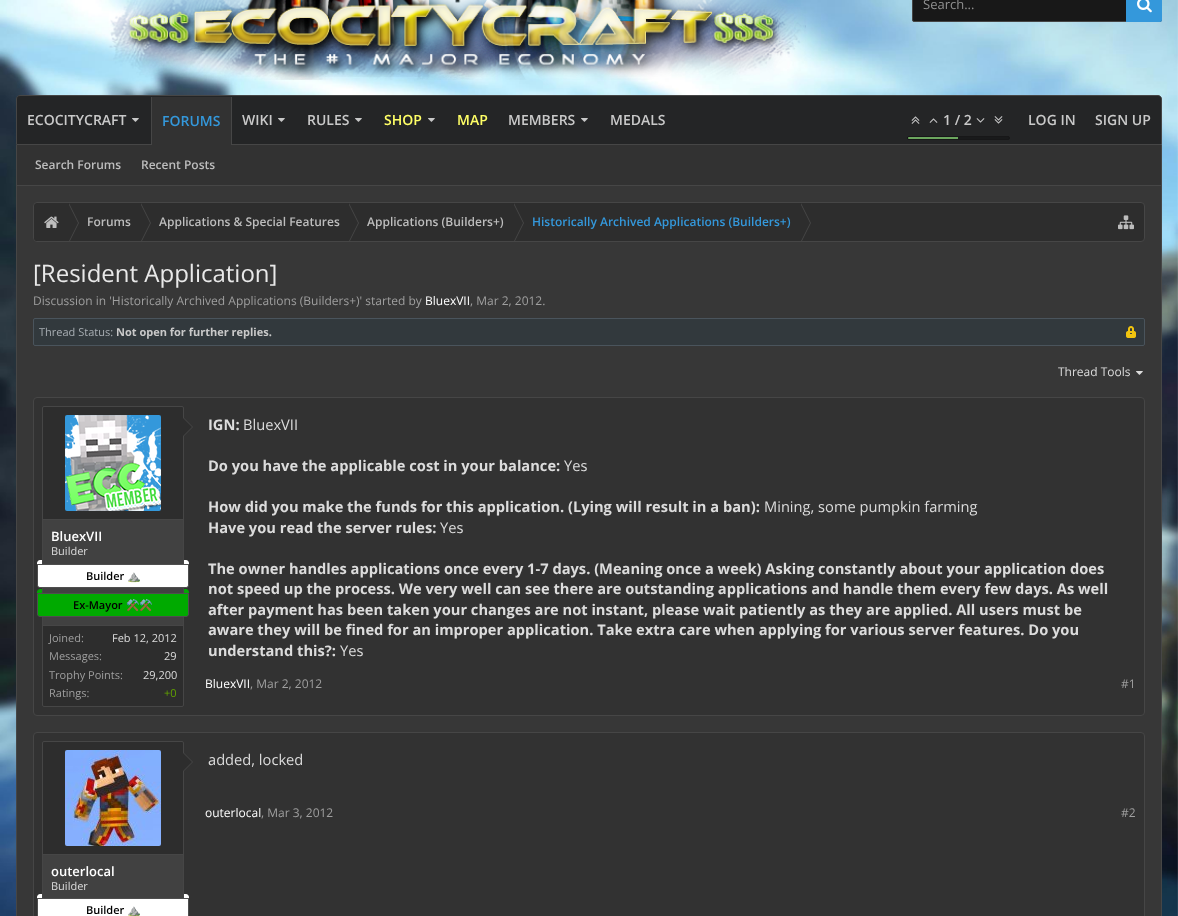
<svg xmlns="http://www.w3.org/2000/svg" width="1178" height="916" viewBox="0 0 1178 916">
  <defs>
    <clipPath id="clip1"><rect x="34" y="203" width="1110" height="38" rx="3"/></clipPath>
  </defs>
  <rect width="100%" height="100%" fill="#fff"/>
  <image x="0" y="0" width="1178" height="916" href="img/1.png"/>
  <image x="109" y="0" width="697" height="80" href="img/2.png"/>
  <rect x="912.5" y="-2.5" width="249" height="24" rx="1.5" fill="#181818" stroke="#464646"/>
  <path d="M1126-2H1160C1161-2 1162-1 1162 0V20C1162 21 1161 22 1160 22H1126Z" fill="#3498db"/>
  <image x="1137" y="0" width="15" height="13" href="img/3.png"/>
  <path d="M20 95.5H1158C1160 95.5 1161.5 97 1161.5 99V144.5H16.5V99C16.5 97 18 95.5 20 95.5Z" fill="#242526" stroke="#464646"/>
  <image x="132" y="118" width="7" height="4" href="img/4.png"/>
  <image x="355" y="118" width="7" height="4" href="img/4.png"/>
  <image x="428" y="118" width="7" height="4" href="img/4.png"/>
  <image x="581" y="118" width="7" height="4" href="img/4.png"/>
  <path d="M152 97h79v48H152z" fill="#323232"/>
  <path d="M231 97h1v48H231z" fill="#464646"/>
  <path d="M151 97h1v48H151z" fill="#464646"/>
  <path d="M17 145h1144v40H17z" fill="#323232"/>
  <path d="M1161 145h1v771H1161z" fill="#464646"/>
  <path d="M16 185h1146v1H16z" fill="#464646"/>
  <path d="M16 145h1v41H16z" fill="#464646"/>
  <image x="278" y="118" width="7" height="4" href="img/4.png"/>
  <image x="911" y="116" width="9" height="8" href="img/5.png"/>
  <image x="929" y="118" width="9" height="5" href="img/6.png"/>
  <image x="976" y="118" width="9" height="5" href="img/7.png"/>
  <image x="994" y="116" width="9" height="8" href="img/8.png"/>
  <rect x="907.5" y="136.5" width="102" height="3" rx="1.5" fill="#191a1b" stroke="#171718"/>
  <path d="M909 137H958V139H909C908.5 139 908 138.5 908 138C908 137.5 908.5 137 909 137Z" fill="#6ba65e"/>
  <path d="M17 186h1144v730H17z" fill="#373737"/>
  <path d="M16 186h1v730H16z" fill="#464646"/>
  <rect x="33.5" y="202.5" width="1111" height="39" rx="3.5" fill="#2d2d2d" stroke="#464646"/>
  <g clip-path="url(#clip1)">
    <path d="M38 203H69V242H38C36 242 34 240 34 238V207C34 205 36 203 38 203Z" fill="#2d2d2d"/>
  </g>
  <image x="44" y="216" width="15" height="12" href="img/9.png"/>
  <path d="M70 241H69V203L79 223Z" fill="#464646"/>
  <path d="M69 241H68V203L78 223Z" fill="#2d2d2d"/>
  <path d="M142 241H141V203L151 223Z" fill="#464646"/>
  <path d="M141 241H140V203L150 223Z" fill="#2d2d2d"/>
  <path d="M350 241H349V203L359 223Z" fill="#464646"/>
  <path d="M349 241H348V203L358 223Z" fill="#2d2d2d"/>
  <path d="M515 241H514V203L524 223Z" fill="#464646"/>
  <path d="M514 241H513V203L523 223Z" fill="#2d2d2d"/>
  <path d="M802 241H801V203L811 223Z" fill="#464646"/>
  <path d="M801 241H800V203L810 223Z" fill="#2d2d2d"/>
  <image x="1118" y="215" width="16" height="15" href="img/10.png"/>
  <rect x="33.5" y="318.5" width="1111" height="27" rx="1.5" fill="#32393d" stroke="#4a545c"/>
  <image x="1126" y="326" width="10" height="12" href="img/11.png"/>
  <image x="1136" y="371" width="7" height="4" href="img/12.png"/>
  <rect x="33.5" y="397.5" width="1111" height="318" rx="3.5" fill="#323232" stroke="#464646"/>
  <rect x="42.5" y="406.5" width="141" height="300" rx="1.5" fill="#2d2d2d" stroke="#464646"/>
  <rect x="65" y="415" width="96" height="96" rx="2" fill="#3498db"/>
  <image x="65" y="415" width="96" height="96" href="img/13.png"/>
  <path d="M183 437V417L193 427Z" fill="#464646"/>
  <path d="M182 437V417L192 427Z" fill="#2d2d2d"/>
  <path d="M43 520h140v105H43z" fill="#414141"/>
  <path d="M43 519h140v1H43z" fill="#464646"/>
  <path d="M43 625h140v1H43z" fill="#464646"/>
  <path d="M37.5 564.5H188.5V585C188.5 586.5 187.5 587.5 186 587.5H40C38.5 587.5 37.5 586.5 37.5 585Z" fill="#fff" stroke="#4e4e4e"/>
  <path d="M40 560H42V564H37V563C37 561.5 38.5 560 40 560Z" fill="#fff"/>
  <path d="M184 560H186C187.5 560 189 561.5 189 563V564H184Z" fill="#fff"/>
  <path d="M37.5 593.5H188.5V614C188.5 615.5 187.5 616.5 186 616.5H40C38.5 616.5 37.5 615.5 37.5 614Z" fill="#0a0" stroke="#4e4e4e"/>
  <path d="M40 589H42V593H37V592C37 590.5 38.5 589 40 589Z" fill="#0a0"/>
  <path d="M184 589H186C187.5 589 189 590.5 189 592V593H184Z" fill="#0a0"/>
  <rect x="33.5" y="732.5" width="1111" height="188" rx="3.5" fill="#323232" stroke="#464646"/>
  <rect x="42.5" y="741.5" width="141" height="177" rx="1.5" fill="#2d2d2d" stroke="#464646"/>
  <image x="65" y="750" width="96" height="96" href="img/14.png"/>
  <path d="M183 772V752L193 762Z" fill="#464646"/>
  <path d="M182 772V752L192 762Z" fill="#2d2d2d"/>
  <path d="M43 855h140v43H43z" fill="#414141"/>
  <path d="M43 854h140v1H43z" fill="#464646"/>
  <path d="M37.5 898.5h151v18H37.5z" fill="#fff" stroke="#4e4e4e"/>
  <path d="M40 894H42V898H37V897C37 895.5 38.5 894 40 894Z" fill="#fff"/>
  <path d="M184 894H186C187.5 894 189 895.5 189 897V898H184Z" fill="#fff"/>
  <text x="923" y="9" font-family="Open Sans" font-size="13" fill="#909090">Search...</text>
  <g font-family="Open Sans" font-size="14" font-weight="600" fill="#c9c9c9">
    <text x="27" y="125">ECOCITYCRAFT</text>
    <text x="307" y="125">RULES</text>
  </g>
  <g font-family="Open Sans" font-size="14" font-weight="600" fill="#ff6">
    <text x="384" y="125">SHOP</text>
    <text x="457" y="125">MAP</text>
  </g>
  <g font-family="Open Sans" font-size="14" font-weight="600" fill="#c9c9c9">
    <text x="508" y="125">MEMBERS</text>
    <text x="610" y="125">MEDALS</text>
  </g>
  <text x="162" y="126" font-family="Open Sans" font-size="14" font-weight="600" fill="#3498db">FORUMS</text>
  <g font-family="Open Sans" font-size="12" font-weight="600" fill="#bdbdbd">
    <text x="35" y="169">Search Forums</text>
    <text x="141" y="169">Recent Posts</text>
  </g>
  <g font-family="Open Sans" font-size="14" font-weight="600" fill="#c9c9c9">
    <text x="242" y="125">WIKI</text>
    <text x="943" y="125">1 / 2</text>
    <text x="1028" y="125">LOG IN</text>
    <text x="1095" y="125">SIGN UP</text>
  </g>
  <g font-family="Open Sans" font-size="12" font-weight="600" fill="#bdbdbd">
    <text x="87" y="226">Forums</text>
    <text x="159" y="226">Applications &amp; Special Features</text>
    <text x="367" y="226">Applications (Builders+)</text>
  </g>
  <text x="532" y="226" font-family="Open Sans" font-size="12" font-weight="600" fill="#3498db">Historically Archived Applications (Builders+)</text>
  <text x="33" y="282" font-family="Open Sans" font-size="24" fill="#e9e9e9">[Resident Application]</text>
  <text x="33" y="305" font-family="Open Sans" font-size="12" fill="#9f9f9f">Discussion in 'Historically Archived Applications (Builders+)' started by</text>
  <text x="425" y="305" font-family="Open Sans" font-size="12" fill="#fff">BluexVII</text>
  <text x="470" y="305" font-family="Open Sans" font-size="12" fill="#9f9f9f">, Mar 2, 2012.</text>
  <text x="39" y="336" font-family="Open Sans" font-size="11" fill="#a8aeb3">Thread Status:</text>
  <text x="116" y="336" font-family="Open Sans" font-size="11" font-weight="bold" fill="#c9c9c9">Not open for further replies.</text>
  <text x="1058" y="376" font-family="Open Sans" font-size="12" fill="#dcdcdc">Thread Tools</text>
  <text x="51" y="541" font-family="Open Sans" font-size="13" font-weight="600" fill="#fff">BluexVII</text>
  <text x="51" y="555" font-family="Open Sans" font-size="11" fill="#dcdcdc">Builder</text>
  <text x="86" y="580" font-family="Open Sans" font-size="11" font-weight="600" fill="#000">Builder</text>
  <text x="127" y="580" font-family="Noto Color Emoji" font-size="11" font-weight="bold" fill="#000">⛰️</text>
  <text x="73" y="609" font-family="Open Sans" font-size="11" font-weight="600" fill="#000">Ex-Mayor</text>
  <text x="126" y="609" font-family="Noto Color Emoji" font-size="11" font-weight="bold" fill="#000">⚒️⚒️</text>
  <text x="49" y="642" font-family="Open Sans" font-size="11" fill="#9f9f9f">Joined:</text>
  <text x="112" y="642" font-family="Open Sans" font-size="11" fill="#dcdcdc">Feb 12, 2012</text>
  <text x="49" y="660" font-family="Open Sans" font-size="11" fill="#9f9f9f">Messages:</text>
  <text x="164" y="660" font-family="Open Sans" font-size="11" fill="#dcdcdc">29</text>
  <text x="49" y="679" font-family="Open Sans" font-size="11" fill="#9f9f9f">Trophy Points:</text>
  <text x="143" y="679" font-family="Open Sans" font-size="11" fill="#dcdcdc">29,200</text>
  <text x="49" y="697" font-family="Open Sans" font-size="11" fill="#9f9f9f">Ratings:</text>
  <text x="164" y="697" font-family="Open Sans" font-size="11" fill="#62a201">+0</text>
  <text x="208" y="430" font-family="Open Sans" font-size="14.67" font-weight="bold" fill="#dcdcdc">IGN:</text>
  <text x="243" y="430" font-family="Open Sans" font-size="14.67" fill="#dcdcdc">BluexVII</text>
  <text x="208" y="471" font-family="Open Sans" font-size="14.67" font-weight="bold" fill="#dcdcdc">Do you have the applicable cost in your balance:</text>
  <text x="564" y="471" font-family="Open Sans" font-size="14.67" fill="#dcdcdc">Yes</text>
  <text x="208" y="512" font-family="Open Sans" font-size="14.67" font-weight="bold" fill="#dcdcdc">How did you make the funds for this application. (Lying will result in a ban):</text>
  <text x="764" y="512" font-family="Open Sans" font-size="14.67" fill="#dcdcdc">Mining, some pumpkin farming</text>
  <text x="208" y="533" font-family="Open Sans" font-size="14.67" font-weight="bold" fill="#dcdcdc">Have you read the server rules:</text>
  <text x="440" y="533" font-family="Open Sans" font-size="14.67" fill="#dcdcdc">Yes</text>
  <g font-family="Open Sans" font-size="14.67" font-weight="bold" fill="#dcdcdc">
    <text x="208" y="574">The owner handles applications once every 1-7 days. (Meaning once a week) Asking constantly about your application does</text>
    <text x="208" y="594">not speed up the process. We very well can see there are outstanding applications and handle them every few days. As well</text>
    <text x="208" y="615">after payment has been taken your changes are not instant, please wait patiently as they are applied. All users must be</text>
    <text x="208" y="635">aware they will be fined for an improper application. Take extra care when applying for various server features. Do you</text>
    <text x="208" y="656">understand this?:</text>
  </g>
  <text x="340" y="656" font-family="Open Sans" font-size="14.67" fill="#dcdcdc">Yes</text>
  <text x="205" y="688" font-family="Open Sans" font-size="12" fill="#fff">BluexVII</text>
  <g font-family="Open Sans" font-size="12" fill="#9f9f9f">
    <text x="250" y="688">, Mar 2, 2012</text>
    <text x="1121" y="688">#1</text>
  </g>
  <text x="208" y="765" font-family="Open Sans" font-size="14.67" fill="#dcdcdc">added, locked</text>
  <text x="205" y="817" font-family="Open Sans" font-size="12" fill="#fff">outerlocal</text>
  <g font-family="Open Sans" font-size="12" fill="#9f9f9f">
    <text x="261" y="817">, Mar 3, 2012</text>
    <text x="1121" y="817">#2</text>
  </g>
  <text x="51" y="876" font-family="Open Sans" font-size="13" font-weight="600" fill="#fff">outerlocal</text>
  <text x="51" y="890" font-family="Open Sans" font-size="11" fill="#dcdcdc">Builder</text>
  <text x="86" y="914" font-family="Open Sans" font-size="11" font-weight="600" fill="#000">Builder</text>
  <text x="127" y="914" font-family="Noto Color Emoji" font-size="11" font-weight="bold" fill="#000">⛰️</text>
</svg>
